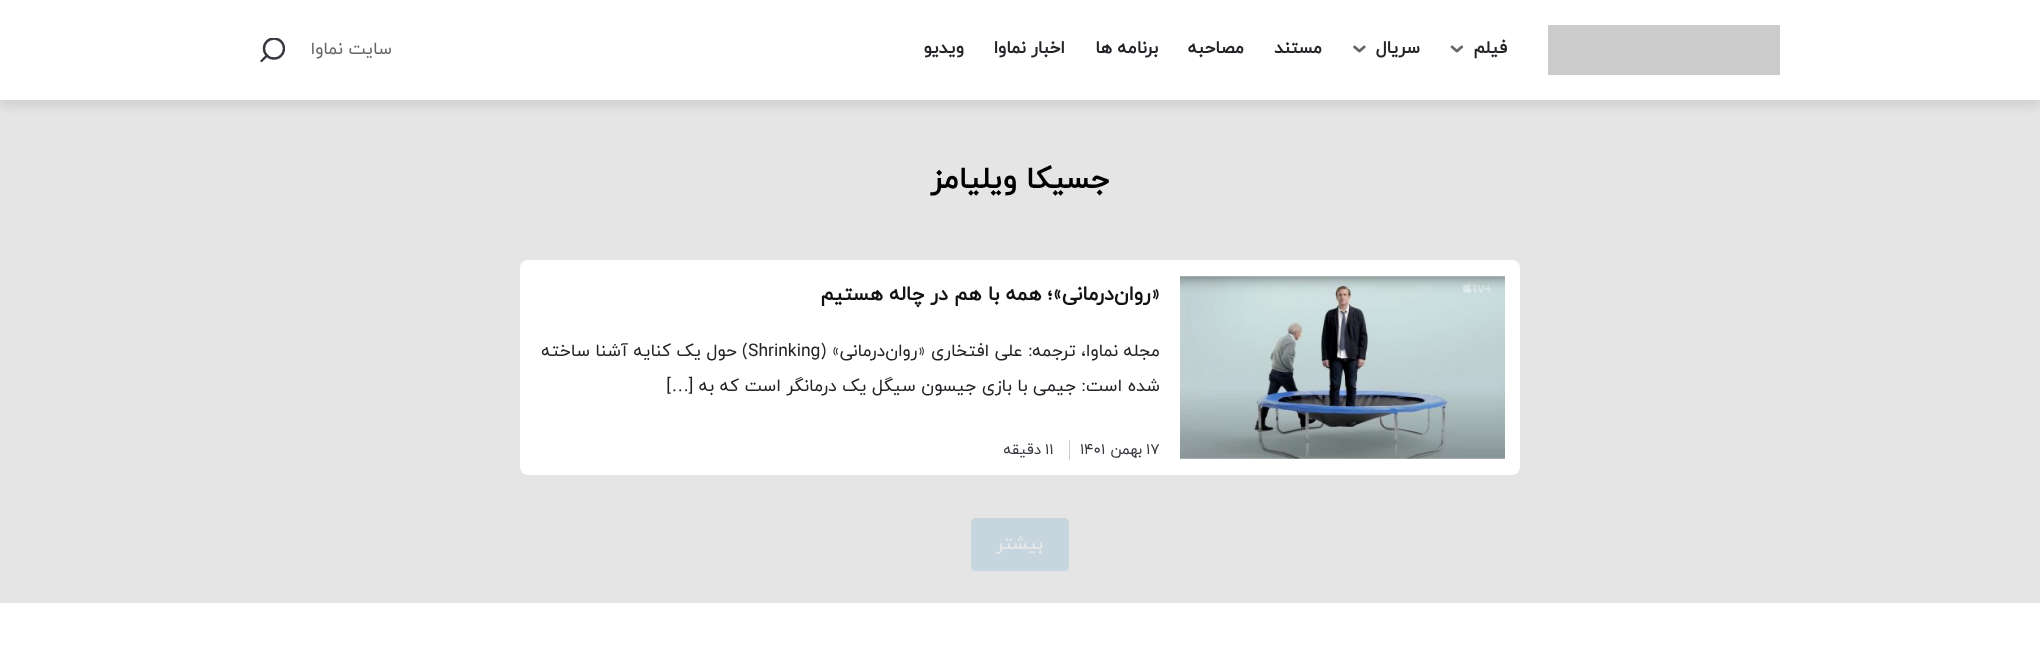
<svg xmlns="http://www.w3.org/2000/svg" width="2040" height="663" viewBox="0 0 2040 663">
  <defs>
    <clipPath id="clip1"><path d="M260 38h25v25H260z"/></clipPath>
  </defs>
  <rect width="100%" height="100%" fill="#e5e5e5"/>
  <path d="M0 5h2040v100H0z" fill="#0000001a" filter="blur(6px)"/>
  <path d="M0 0h2040v100H0z" fill="#fff"/>
  <path d="M1548 25h232v50H1548z" fill="#ccc"/>
  <image x="1450" y="45" width="14" height="8" href="img/1.png"/>
  <image x="1353" y="45" width="13" height="8" href="img/2.png"/>
  <g clip-path="url(#clip1)">
    <circle cx="274" cy="48.5" r="10" fill="none" stroke="#37383e" stroke-width="2.4"/>
  </g>
  <path d="M261.5 61L267 55.5" fill="none" stroke="#37383e" stroke-width="2.4" stroke-linecap="round" stroke-linejoin="round"/>
  <rect x="520" y="260" width="1000" height="215" rx="8" fill="#fff"/>
  <image x="1180" y="276" width="325" height="183" href="img/3.png"/>
  <path d="M1069 440h1v20H1069z" fill="#ccc"/>
  <rect x="971" y="518" width="98" height="53" rx="5" fill="#c7d6de"/>
  <path d="M0 603h2040v60H0z" fill="#fff"/>
  <g font-family="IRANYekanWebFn" font-size="17.5" font-weight="bold" direction="rtl" fill="#222327">
    <text x="1507" y="53">فیلم</text>
    <text x="1420" y="53">سریال</text>
    <text x="1322" y="53">مستند</text>
    <text x="1244" y="53">مصاحبه</text>
    <text x="1158" y="53">برنامه ها</text>
    <text x="1065" y="53">اخبار نماوا</text>
    <text x="964" y="53">ویدیو</text>
  </g>
  <text x="392" y="54" font-family="IRANYekanWebFn" font-size="17.5" direction="rtl" fill="#666">سایت نماوا</text>
  <text x="1109" y="188" font-family="IRANYekanWebFn" font-size="30" font-weight="bold" direction="rtl" fill="#000">جسیکا ویلیامز</text>
  <text x="1160" y="300" font-family="IRANYekanWebFn" font-size="20" font-weight="bold" direction="rtl" fill="#121212">«روان‌درمانی»؛ همه با هم در چاله هستیم</text>
  <text x="1160" y="356" font-family="IRANYekanWebFn" font-size="17.5" direction="rtl" fill="#222327">مجله نماوا، ترجمه: علی افتخاری «روان‌درمانی» (</text>
  <text x="748" y="356" font-family="IRANYekanWebFn" font-size="17.5" fill="#222327">Shrinking</text>
  <g font-family="IRANYekanWebFn" font-size="17.5" direction="rtl" fill="#222327">
    <text x="748" y="356">) حول یک کنایه آشنا ساخته</text>
    <text x="1160" y="391">شده است: جیمی با بازی جیسون سیگل یک درمانگر است که به [</text>
  </g>
  <text x="689" y="391" font-family="Liberation Serif" font-size="17.5" direction="rtl" fill="#222327">…</text>
  <text x="671" y="391" font-family="IRANYekanWebFn" font-size="17.5" direction="rtl" fill="#222327">]</text>
  <text x="1146" y="454" font-family="IRANYekanWebFn" font-size="15" fill="#37383e">17</text>
  <text x="1142" y="454" font-family="IRANYekanWebFn" font-size="15" direction="rtl" fill="#37383e">بهمن</text>
  <g font-family="IRANYekanWebFn" font-size="15" fill="#37383e">
    <text x="1080" y="454">1401</text>
    <text x="1045" y="454">11</text>
  </g>
  <text x="1041" y="454" font-family="IRANYekanWebFn" font-size="15" direction="rtl" fill="#37383e">دقیقه</text>
  <text x="1043" y="549" font-family="IRANYekanWebFn" font-size="19" direction="rtl" fill="#e9e9e9">بیشتر</text>
</svg>
